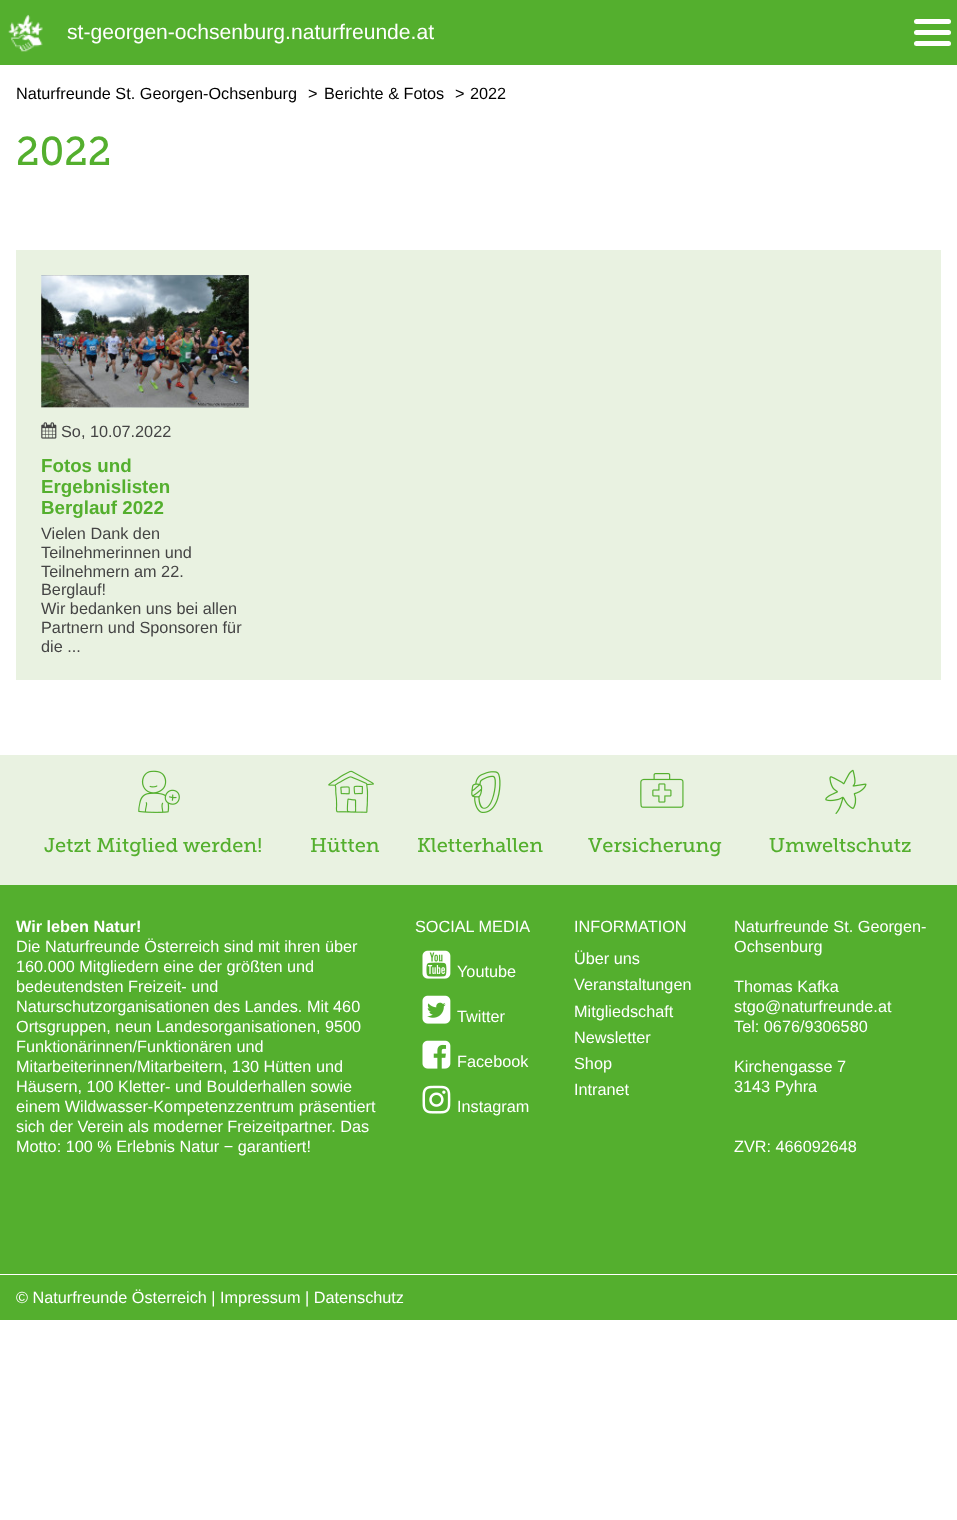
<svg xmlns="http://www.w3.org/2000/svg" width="957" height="1520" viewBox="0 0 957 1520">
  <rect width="100%" height="100%" fill="#fff"/>
  <path d="M0 0h957v65H0z" fill="#54af2e"/>
  <image x="8" y="14" width="35" height="38" href="img/1.png"/>
  <rect x="914" y="19" width="37" height="5" rx="2.5" fill="#fff"/>
  <rect x="914" y="30" width="37" height="5" rx="2.5" fill="#fff"/>
  <rect x="914" y="41" width="37" height="5" rx="2.5" fill="#fff"/>
  <path d="M16 250h925v430H16z" fill="#e9f2e1"/>
  <image x="41" y="275" width="208" height="133" href="img/2.png"/>
  <image x="41" y="422" width="16" height="17" href="img/3.png"/>
  <path d="M0 755h957v130H0z" fill="#e9f2e1"/>
  <image x="138" y="770" width="42" height="43" href="img/4.png"/>
  <image x="328" y="770" width="46" height="43" href="img/5.png"/>
  <image x="471" y="771" width="30" height="42" href="img/6.png"/>
  <image x="640" y="773" width="44" height="35" href="img/7.png"/>
  <image x="825" y="769" width="42" height="45" href="img/8.png"/>
  <path d="M0 885h957v435H0z" fill="#54af2e"/>
  <image x="422" y="950" width="29" height="29" href="img/9.png"/>
  <image x="422" y="995" width="29" height="29" href="img/10.png"/>
  <image x="422" y="1040" width="29" height="29" href="img/11.png"/>
  <image x="422" y="1085" width="29" height="29" href="img/12.png"/>
  <path d="M0 1274h957v1H0z" fill="#fff"/>
  <text x="67" y="39" font-family="Liberation Sans" font-size="21.1" fill="#fff">st-georgen-ochsenburg.naturfreunde.at</text>
  <g font-family="Liberation Sans" font-size="16.25" fill="#000">
    <text x="16" y="99">Naturfreunde St. Georgen-Ochsenburg</text>
    <text x="308" y="99">&gt;</text>
    <text x="324" y="99">Berichte &amp; Fotos</text>
    <text x="455" y="99">&gt;</text>
    <text x="470" y="99">2022</text>
  </g>
  <text x="16" y="165" font-family="'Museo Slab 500'" font-size="40" fill="#54af2e">2022</text>
  <text x="61" y="437" font-family="Liberation Sans" font-size="16.25" fill="#444">So, 10.07.2022</text>
  <g font-family="Liberation Sans" font-size="18.75" font-weight="bold" fill="#54af2e">
    <text x="41" y="472">Fotos und</text>
    <text x="41" y="493">Ergebnislisten</text>
    <text x="41" y="514">Berglauf 2022</text>
  </g>
  <g font-family="Liberation Sans" font-size="16.25" fill="#444">
    <text x="41" y="539">Vielen Dank den</text>
    <text x="41" y="558">Teilnehmerinnen und</text>
    <text x="41" y="577">Teilnehmern am 22.</text>
    <text x="41" y="595">Berglauf!</text>
    <text x="41" y="614">Wir bedanken uns bei allen</text>
    <text x="41" y="633">Partnern und Sponsoren für</text>
    <text x="41" y="652">die ...</text>
  </g>
  <g font-family="'Museo Slab 500'" font-size="20" fill="#54af2e">
    <text x="44" y="852">Jetzt Mitglied werden!</text>
    <text x="310" y="852">Hütten</text>
    <text x="417" y="852">Kletterhallen</text>
    <text x="588" y="852">Versicherung</text>
    <text x="769" y="852">Umweltschutz</text>
  </g>
  <text x="16" y="932" font-family="Liberation Sans" font-size="16.25" font-weight="bold" fill="#fff">Wir leben Natur!</text>
  <g font-family="Liberation Sans" font-size="16.25" fill="#fff">
    <text x="16" y="952">Die Naturfreunde Österreich sind mit ihren über</text>
    <text x="16" y="972">160.000 Mitgliedern eine der größten und</text>
    <text x="16" y="992">bedeutendsten Freizeit- und</text>
    <text x="16" y="1012">Naturschutzorganisationen des Landes. Mit 460</text>
    <text x="16" y="1032">Ortsgruppen, neun Landesorganisationen, 9500</text>
    <text x="16" y="1052">Funktionärinnen/Funktionären und</text>
    <text x="16" y="1072">Mitarbeiterinnen/Mitarbeitern, 130 Hütten und</text>
    <text x="16" y="1092">Häusern, 100 Kletter- und Boulderhallen sowie</text>
    <text x="16" y="1112">einem Wildwasser-Kompetenzzentrum präsentiert</text>
    <text x="16" y="1132">sich der Verein als moderner Freizeitpartner. Das</text>
    <text x="16" y="1152">Motto: 100 % Erlebnis Natur − garantiert!</text>
    <text x="415" y="932">SOCIAL MEDIA</text>
    <text x="457" y="977">Youtube</text>
    <text x="457" y="1022">Twitter</text>
    <text x="457" y="1067">Facebook</text>
    <text x="457" y="1112">Instagram</text>
    <text x="574" y="932">INFORMATION</text>
    <text x="574" y="964">Über uns</text>
    <text x="574" y="990">Veranstaltungen</text>
    <text x="574" y="1017">Mitgliedschaft</text>
    <text x="574" y="1043">Newsletter</text>
    <text x="574" y="1069">Shop</text>
    <text x="574" y="1095">Intranet</text>
    <text x="734" y="932">Naturfreunde St. Georgen-</text>
    <text x="734" y="952">Ochsenburg</text>
    <text x="734" y="992">Thomas Kafka</text>
    <text x="734" y="1012">stgo@naturfreunde.at</text>
    <text x="734" y="1032">Tel: 0676/9306580</text>
    <text x="734" y="1072">Kirchengasse 7</text>
    <text x="734" y="1092">3143 Pyhra</text>
    <text x="734" y="1152">ZVR: 466092648</text>
    <text x="16" y="1303">© Naturfreunde Österreich | Impressum | Datenschutz</text>
  </g>
</svg>
